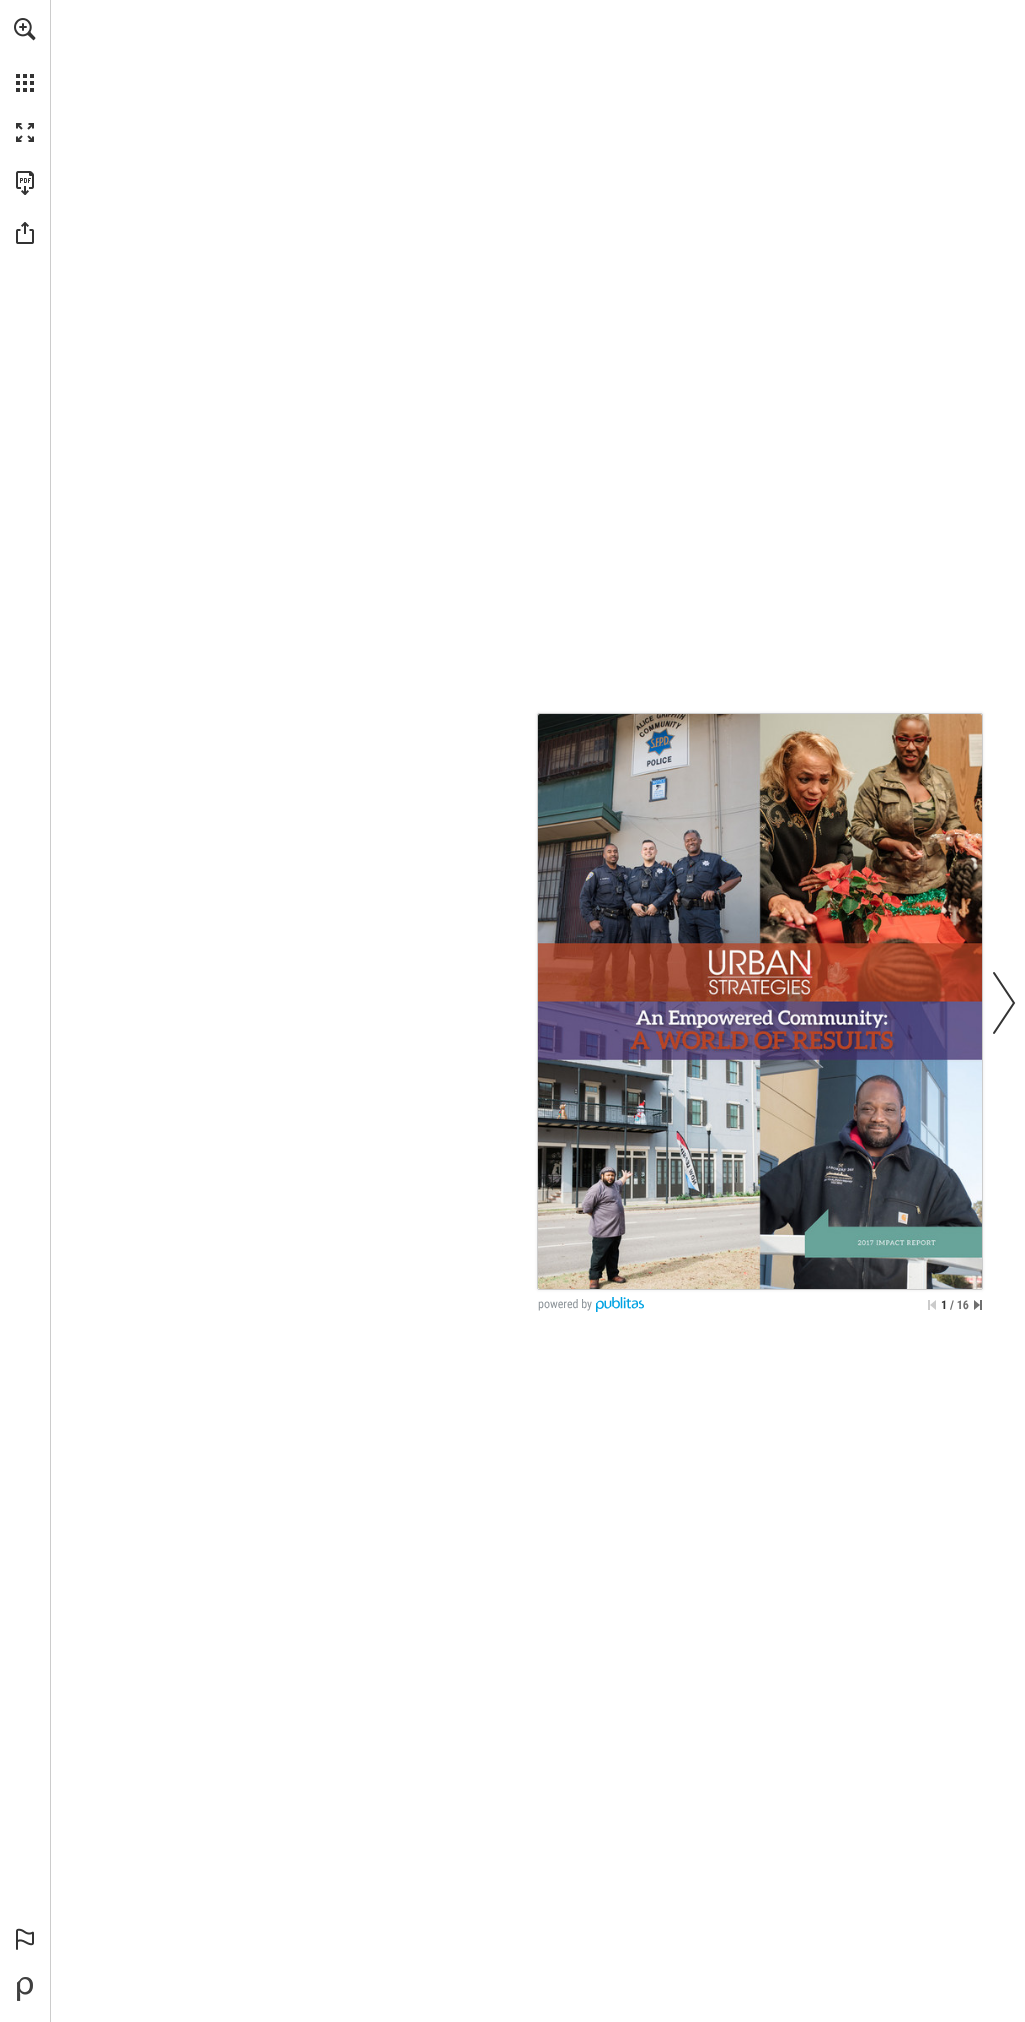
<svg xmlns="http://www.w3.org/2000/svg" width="1025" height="2022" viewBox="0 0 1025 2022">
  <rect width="100%" height="100%" fill="#fff"/>
  <path d="M1 0h50v2022H1z" fill="#00000033" filter="blur(0.5px)"/>
  <path d="M0 0h50v2022H0z" fill="#fff"/>
  <image x="14" y="18" width="22" height="23" href="img/1.png"/>
  <image x="16" y="74" width="18" height="18" href="img/2.png"/>
  <image x="16" y="123" width="18" height="19" href="img/3.png"/>
  <image x="16" y="171" width="18" height="24" href="img/4.png"/>
  <image x="16" y="222" width="18" height="22" href="img/5.png"/>
  <image x="16" y="1928" width="18" height="22" href="img/6.png"/>
  <image x="17" y="1977" width="16" height="24" href="img/7.png"/>
  <rect x="536" y="712" width="448" height="579" rx="3" fill="#1212120d" filter="blur(1px)"/>
  <rect x="537.5" y="713.5" width="445" height="576" rx="1.5" fill="#fff" stroke="#ccc"/>
  <image x="538" y="714" width="444" height="575" href="img/8.png"/>
  <image x="596" y="1297" width="48" height="15" href="img/9.png"/>
  <image x="993" y="972" width="23" height="62" href="img/10.png"/>
  <image x="928" y="1300" width="8" height="10" href="img/11.png"/>
  <image x="974" y="1300" width="8" height="10" href="img/12.png"/>
  <text x="538" y="1308" font-family="Roboto Condensed" font-size="12" fill="#8f969b">powered by</text>
  <text x="941" y="1309" font-family="Roboto Condensed" font-size="12" font-weight="bold" fill="#333">1</text>
  <text x="950" y="1309" font-family="Roboto Condensed" font-size="12" font-weight="bold" fill="#707070">/ 16</text>
</svg>
